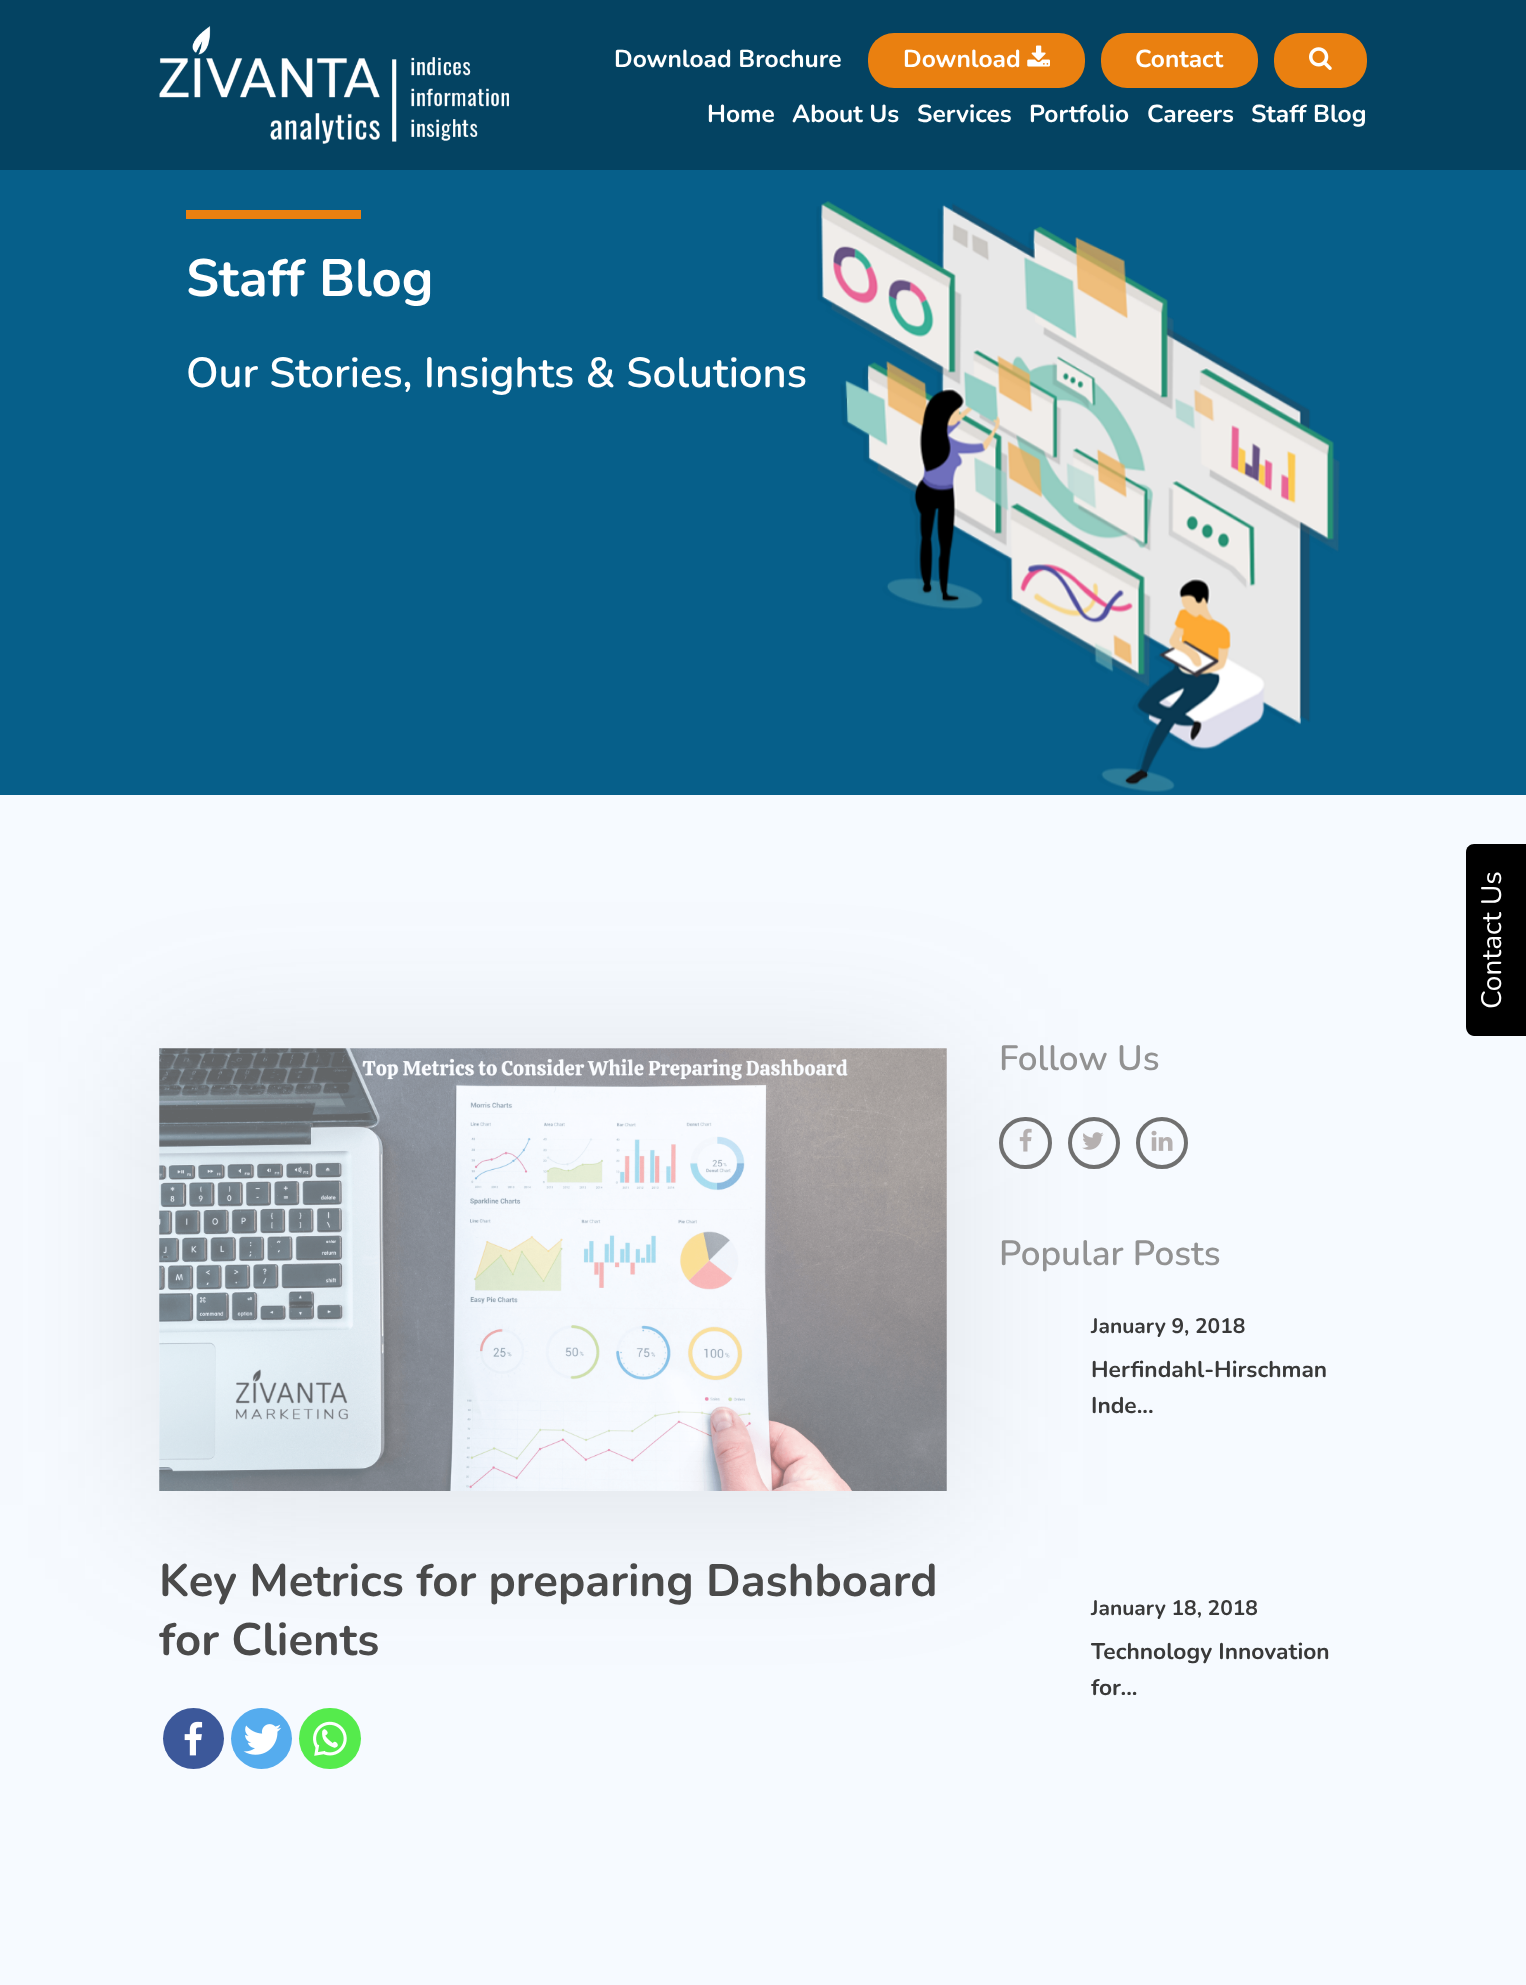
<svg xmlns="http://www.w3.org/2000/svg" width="1526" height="1985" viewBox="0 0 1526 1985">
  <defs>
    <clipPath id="clip1"><path d="M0 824H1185V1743H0ZM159 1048H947V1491H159Z" clip-rule="evenodd"/></clipPath>
  </defs>
  <rect width="100%" height="100%" fill="#f6faff"/>
  <path d="M0 0h1526v170H0z" fill="#044362"/>
  <image x="159" y="26" width="350" height="118" href="img/1.png"/>
  <rect x="868" y="33" width="217" height="55" rx="26" fill="#ea8010"/>
  <image x="1027" y="45" width="23" height="22" href="img/2.png"/>
  <rect x="1101" y="33" width="157" height="55" rx="26" fill="#ea8010"/>
  <rect x="1274" y="33" width="93" height="55" rx="26" fill="#ea8010"/>
  <image x="1309" y="47" width="23" height="23" href="img/3.png"/>
  <path d="M0 170h1526v625H0z" fill="#065f8a"/>
  <path d="M186 210h175v9H186z" fill="#ea8010"/>
  <image x="816" y="201" width="524" height="591" href="img/4.png"/>
  <g clip-path="url(#clip1)">
    <path d="M159 1062h788v443H159z" fill="#62646426" filter="blur(79px)"/>
  </g>
  <image x="159" y="1048" width="788" height="443" href="img/5.png"/>
  <circle cx="193.5" cy="1738.5" r="30.5" fill="#3c589a"/>
  <image x="184" y="1721" width="19" height="35" href="img/6.png"/>
  <circle cx="261.5" cy="1738.5" r="30.5" fill="#55acee"/>
  <image x="243" y="1724" width="39" height="31" href="img/7.png"/>
  <rect x="299" y="1708" width="62" height="61" rx="30.5" fill="#55eb4c"/>
  <image x="313" y="1721" width="34" height="35" href="img/8.png"/>
  <rect x="1001" y="1119" width="49" height="48" rx="24" fill="none" stroke="#707070" stroke-width="4"/>
  <image x="1019" y="1128" width="13" height="24" href="img/9.png"/>
  <circle cx="1094" cy="1143" r="24" fill="none" stroke="#707070" stroke-width="4"/>
  <image x="1082" y="1132" width="22" height="18" href="img/10.png"/>
  <circle cx="1162" cy="1143" r="24" fill="none" stroke="#707070" stroke-width="4"/>
  <image x="1151" y="1130" width="22" height="21" href="img/11.png"/>
  <path d="M1466 1027V852C1466 847 1470 844 1474 844H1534V1036H1474C1470 1036 1466 1032 1466 1027Z" fill="#000"/>
  <g font-family="Nunito" font-size="24.5" font-weight="bold" fill="#fff">
    <text x="614" y="67">Download Brochure</text>
    <text x="903" y="67">Download</text>
    <text x="1135" y="67">Contact</text>
    <text x="707" y="122">Home</text>
    <text x="792" y="122">About Us</text>
    <text x="917" y="122">Services</text>
    <text x="1029" y="122">Portfolio</text>
    <text x="1147" y="122">Careers</text>
    <text x="1251" y="122">Staff Blog</text>
  </g>
  <text x="186" y="296" font-family="Nunito" font-size="52.5" font-weight="bold" fill="#fff">Staff Blog</text>
  <text x="186" y="387" font-family="Nunito" font-size="42" font-weight="600" fill="#fff">Our Stories, Insights &amp; Solutions</text>
  <g font-family="Nunito" font-size="45.5" font-weight="bold" fill="#4a4a4a">
    <text x="159" y="1596">Key Metrics for preparing Dashboard</text>
    <text x="159" y="1655">for Clients</text>
  </g>
  <g font-family="Nunito" font-size="35" font-weight="600" fill="#929292">
    <text x="999" y="1070">Follow Us</text>
    <text x="999" y="1265">Popular Posts</text>
  </g>
  <text x="1091" y="1333" font-family="Nunito" font-size="21" font-weight="bold" fill="#393939">January 9, 2018</text>
  <g font-family="Nunito" font-size="22.75" font-weight="bold" fill="#393939">
    <text x="1091" y="1377">Herfindahl-Hirschman</text>
    <text x="1091" y="1413">Inde...</text>
  </g>
  <text x="1091" y="1615" font-family="Nunito" font-size="21" font-weight="bold" fill="#393939">January 18, 2018</text>
  <g font-family="Nunito" font-size="22.75" font-weight="bold" fill="#393939">
    <text x="1091" y="1659">Technology Innovation</text>
    <text x="1091" y="1695">for...</text>
  </g>
  <text x="1501" y="1009" transform="rotate(-90 1501 1009)" font-family="Nunito" font-size="28" fill="#fff">Contact Us</text>
</svg>
